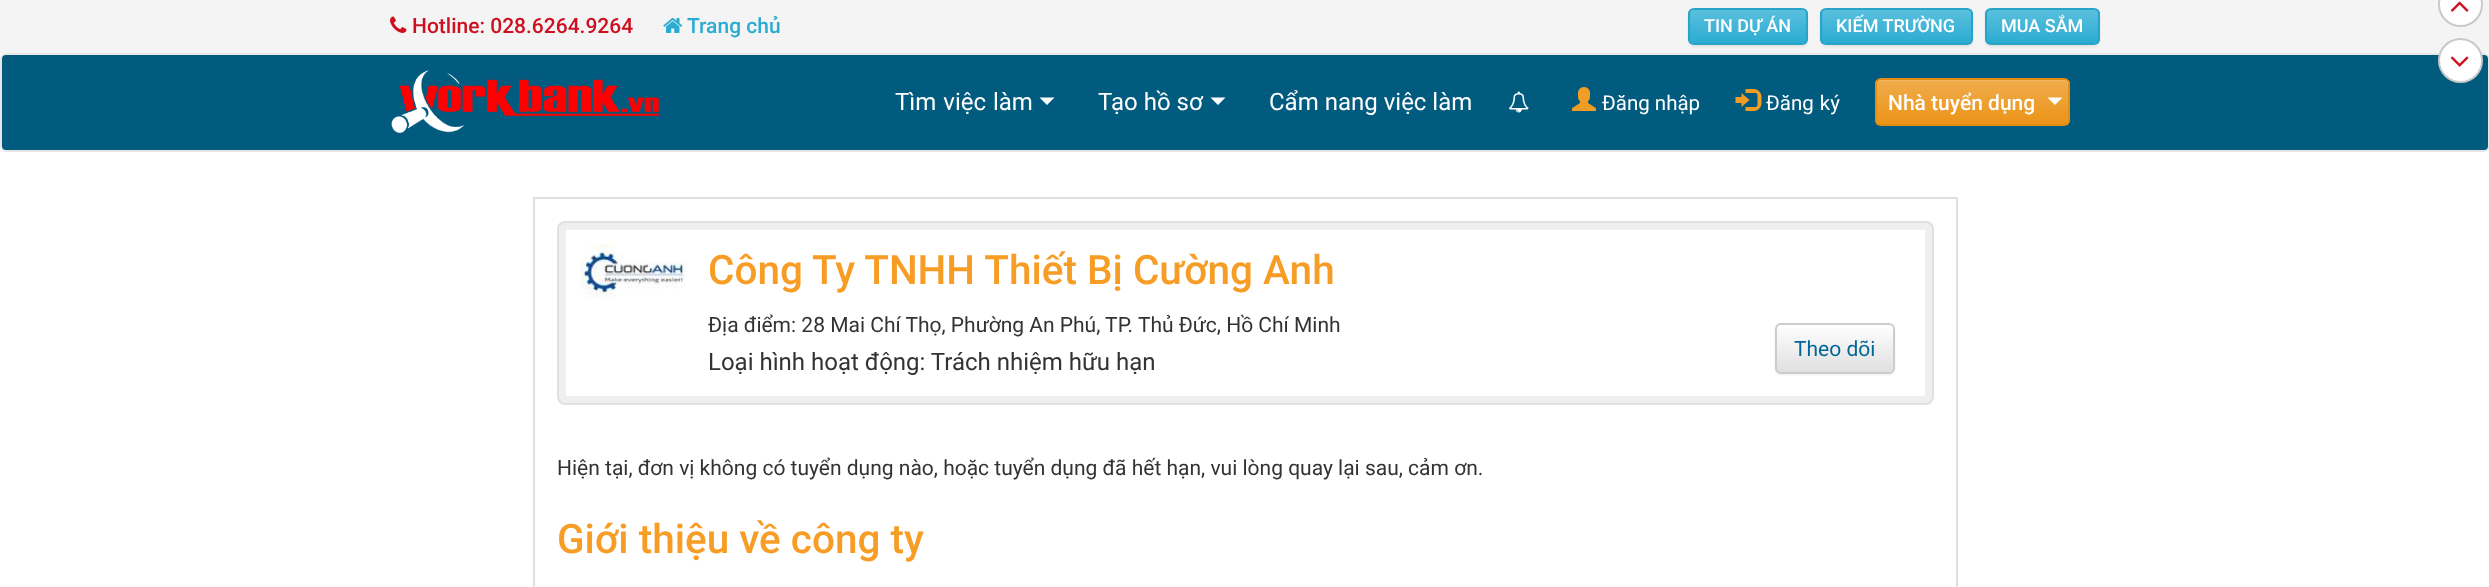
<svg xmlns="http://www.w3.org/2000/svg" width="2489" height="587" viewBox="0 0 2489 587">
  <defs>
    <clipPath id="clip1"><rect x="1688" y="8" width="120" height="37" rx="6"/></clipPath>
    <linearGradient id="g1" gradientUnits="userSpaceOnUse" x1="1748" y1="9" x2="1748" y2="44"><stop offset="0" stop-color="#5bc0de"/><stop offset="1" stop-color="#2aabd2"/></linearGradient>
    <clipPath id="clip2"><rect x="1820" y="8" width="153" height="37" rx="6"/></clipPath>
    <linearGradient id="g2" gradientUnits="userSpaceOnUse" x1="1896" y1="9" x2="1896" y2="44"><stop offset="0" stop-color="#5bc0de"/><stop offset="1" stop-color="#2aabd2"/></linearGradient>
    <clipPath id="clip3"><rect x="1985" y="8" width="115" height="37" rx="6"/></clipPath>
    <linearGradient id="g3" gradientUnits="userSpaceOnUse" x1="2042" y1="9" x2="2042" y2="44"><stop offset="0" stop-color="#5bc0de"/><stop offset="1" stop-color="#2aabd2"/></linearGradient>
    <clipPath id="clip4"><rect x="1875" y="78" width="195" height="48" rx="6"/></clipPath>
    <linearGradient id="g4" gradientUnits="userSpaceOnUse" x1="1973" y1="79" x2="1973" y2="125"><stop offset="0" stop-color="#f0ad4e"/><stop offset="1" stop-color="#eb9316"/></linearGradient>
    <clipPath id="clip5"><rect x="1775" y="323" width="120" height="51" rx="6"/></clipPath>
    <linearGradient id="g5" gradientUnits="userSpaceOnUse" x1="1835" y1="324" x2="1835" y2="372"><stop offset="0" stop-color="#fff"/><stop offset="1" stop-color="#e0e0e0"/></linearGradient>
  </defs>
  <rect width="100%" height="100%" fill="#fff"/>
  <path d="M0 0h2489v53H0z" fill="#f4f4f4"/>
  <image x="390" y="16" width="17" height="17" href="img/1.png"/>
  <image x="663" y="18" width="20" height="15" href="img/2.png"/>
  <rect x="1688" y="9" width="120" height="38" rx="6" fill="#00000012" filter="blur(1px)"/>
  <g clip-path="url(#clip1)">
    <path d="M1688 9h120v35H1688z" fill="url(#g1)"/>
  </g>
  <path d="M1694 10H1802C1804 10 1806 13 1806 15C1806 4 1788 9 1783 9H1712C1707 9 1689 4 1689 15C1689 13 1691 10 1694 10Z" fill="#ffffff26"/>
  <rect x="1689" y="9" width="118" height="35" rx="5" fill="none" stroke="#28a4c9" stroke-width="2"/>
  <rect x="1820" y="9" width="153" height="38" rx="6" fill="#00000012" filter="blur(1px)"/>
  <g clip-path="url(#clip2)">
    <path d="M1820 9h153v35H1820z" fill="url(#g2)"/>
  </g>
  <path d="M1826 10H1966C1969 10 1971 13 1971 15V14C1971 11 1969 9 1966 9H1826C1823 9 1821 11 1821 14V15C1821 13 1823 10 1826 10Z" fill="#ffffff26"/>
  <rect x="1821" y="9" width="151" height="35" rx="5" fill="none" stroke="#28a4c9" stroke-width="2"/>
  <rect x="1985" y="9" width="115" height="38" rx="6" fill="#00000012" filter="blur(1px)"/>
  <g clip-path="url(#clip3)">
    <path d="M1985 9h115v35H1985z" fill="url(#g3)"/>
  </g>
  <path d="M1990 10H2094C2096 10 2098 13 2098 15V40L2097 43C2100 40 2099 30 2099 26C2099 5 2101 9 2077 9H2008C2003 9 1986 5 1986 15C1986 13 1988 10 1990 10Z" fill="#ffffff26"/>
  <rect x="1986" y="9" width="113" height="35" rx="5" fill="none" stroke="#28a4c9" stroke-width="2"/>
  <rect x="1" y="54" width="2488" height="97" rx="5" fill="#015b7e" stroke="#e7e7e7" stroke-width="2"/>
  <image x="391" y="70" width="268" height="63" href="img/3.png"/>
  <path d="M1039.5 97.5H1054.5L1047 105Z" fill="#fff"/>
  <path d="M1210.5 97.5H1225.5L1218 105Z" fill="#fff"/>
  <image x="1509" y="91" width="20" height="22" href="img/4.png"/>
  <image x="1572" y="87" width="24" height="24" href="img/5.png"/>
  <image x="1735" y="89" width="27" height="22" href="img/6.png"/>
  <g clip-path="url(#clip4)">
    <path d="M1875 80h195v45H1875z" fill="url(#g4)"/>
  </g>
  <path d="M1881 81H2064C2066 81 2068 83 2068 86V123C2069 122 2069 121 2069 120V85C2069 82 2067 80 2064 80H1882C1880 80 1879 81 1878 82Z" fill="#ffffff26"/>
  <rect x="1876" y="79" width="193" height="46" rx="5" fill="none" stroke="#e38d13" stroke-width="2"/>
  <path d="M2047.5 97.5H2062.5L2055 105Z" fill="#fff"/>
  <path d="M534 198h1423v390H534z" fill="none" stroke="#e0e0e0" stroke-width="2"/>
  <rect x="558" y="222" width="1375" height="182" rx="7" fill="#efefef" stroke="#e0e0e0" stroke-width="2"/>
  <path d="M566 230h1359v166H566z" fill="#fff"/>
  <image x="580" y="244" width="106" height="55" href="img/7.png"/>
  <rect x="1775" y="324" width="120" height="51" rx="6" fill="#00000012" filter="blur(1px)"/>
  <g clip-path="url(#clip5)">
    <path d="M1775 324h120v48H1775z" fill="url(#g5)"/>
  </g>
  <path d="M1780 326H1888C1891 326 1893 328 1893 330C1893 319 1875 324 1870 324H1799C1794 324 1776 319 1776 330C1776 328 1778 326 1780 326Z" fill="#fff"/>
  <rect x="1776" y="324" width="118" height="49" rx="5" fill="none" stroke="#ccc" stroke-width="2"/>
  <circle cx="2460.5" cy="4.5" r="21.5" fill="#fff" stroke="#c9c9c9" stroke-width="2"/>
  <image x="2450" y="1" width="19" height="11" href="img/8.png"/>
  <circle cx="2460.5" cy="60.5" r="21.5" fill="#fff" stroke="#c9c9c9" stroke-width="2"/>
  <image x="2450" y="56" width="19" height="11" href="img/9.png"/>
  <text x="412" y="33" font-family="Roboto" font-size="21" font-weight="500" fill="#ce0f1f">Hotline: 028.6264.9264</text>
  <text x="687" y="33" font-family="Roboto" font-size="21" font-weight="500" fill="#2aabd2">Trang chủ</text>
  <g font-family="Roboto" font-size="18" font-weight="500" fill="#fff">
    <text x="1704" y="32">TIN DỰ ÁN</text>
    <text x="1836" y="32">KIẾM TRƯỜNG</text>
    <text x="2001" y="32">MUA SẮM</text>
  </g>
  <g font-family="Roboto" font-size="24" fill="#fff">
    <text x="895" y="110" word-spacing="1">Tìm việc làm</text>
    <text x="1098" y="110">Tạo hồ sơ</text>
    <text x="1269" y="110">Cẩm nang việc làm</text>
  </g>
  <g font-family="Roboto" font-size="20.5" fill="#fff">
    <text x="1602" y="110">Đăng nhập</text>
    <text x="1766" y="110" word-spacing="1">Đăng ký</text>
  </g>
  <text x="1888" y="110" font-family="Roboto" font-size="21" font-weight="500" fill="#fff">Nhà tuyển dụng</text>
  <text x="708" y="284" font-family="Roboto" font-size="40.5" font-weight="500" fill="#f79d25">Công Ty TNHH Thiết Bị Cường Anh</text>
  <text x="708" y="332" font-family="Roboto" font-size="21" fill="#333">Địa điểm: 28 Mai Chí Thọ, Phường An Phú, TP. Thủ Đức, Hồ Chí Minh</text>
  <text x="708" y="370" font-family="Roboto" font-size="24" fill="#333">Loại hình hoạt động: Trách nhiệm hữu hạn</text>
  <text x="1794" y="356" font-family="Roboto" font-size="21" fill="#069">Theo dõi</text>
  <text x="557" y="475" font-family="Roboto" font-size="21" fill="#333">Hiện tại, đơn vị không có tuyển dụng nào, hoặc tuyển dụng đã hết hạn, vui lòng quay lại sau, cảm ơn.</text>
  <text x="557" y="553" font-family="Roboto" font-size="40.5" font-weight="500" fill="#f79d25">Giới thiệu về công ty</text>
</svg>
